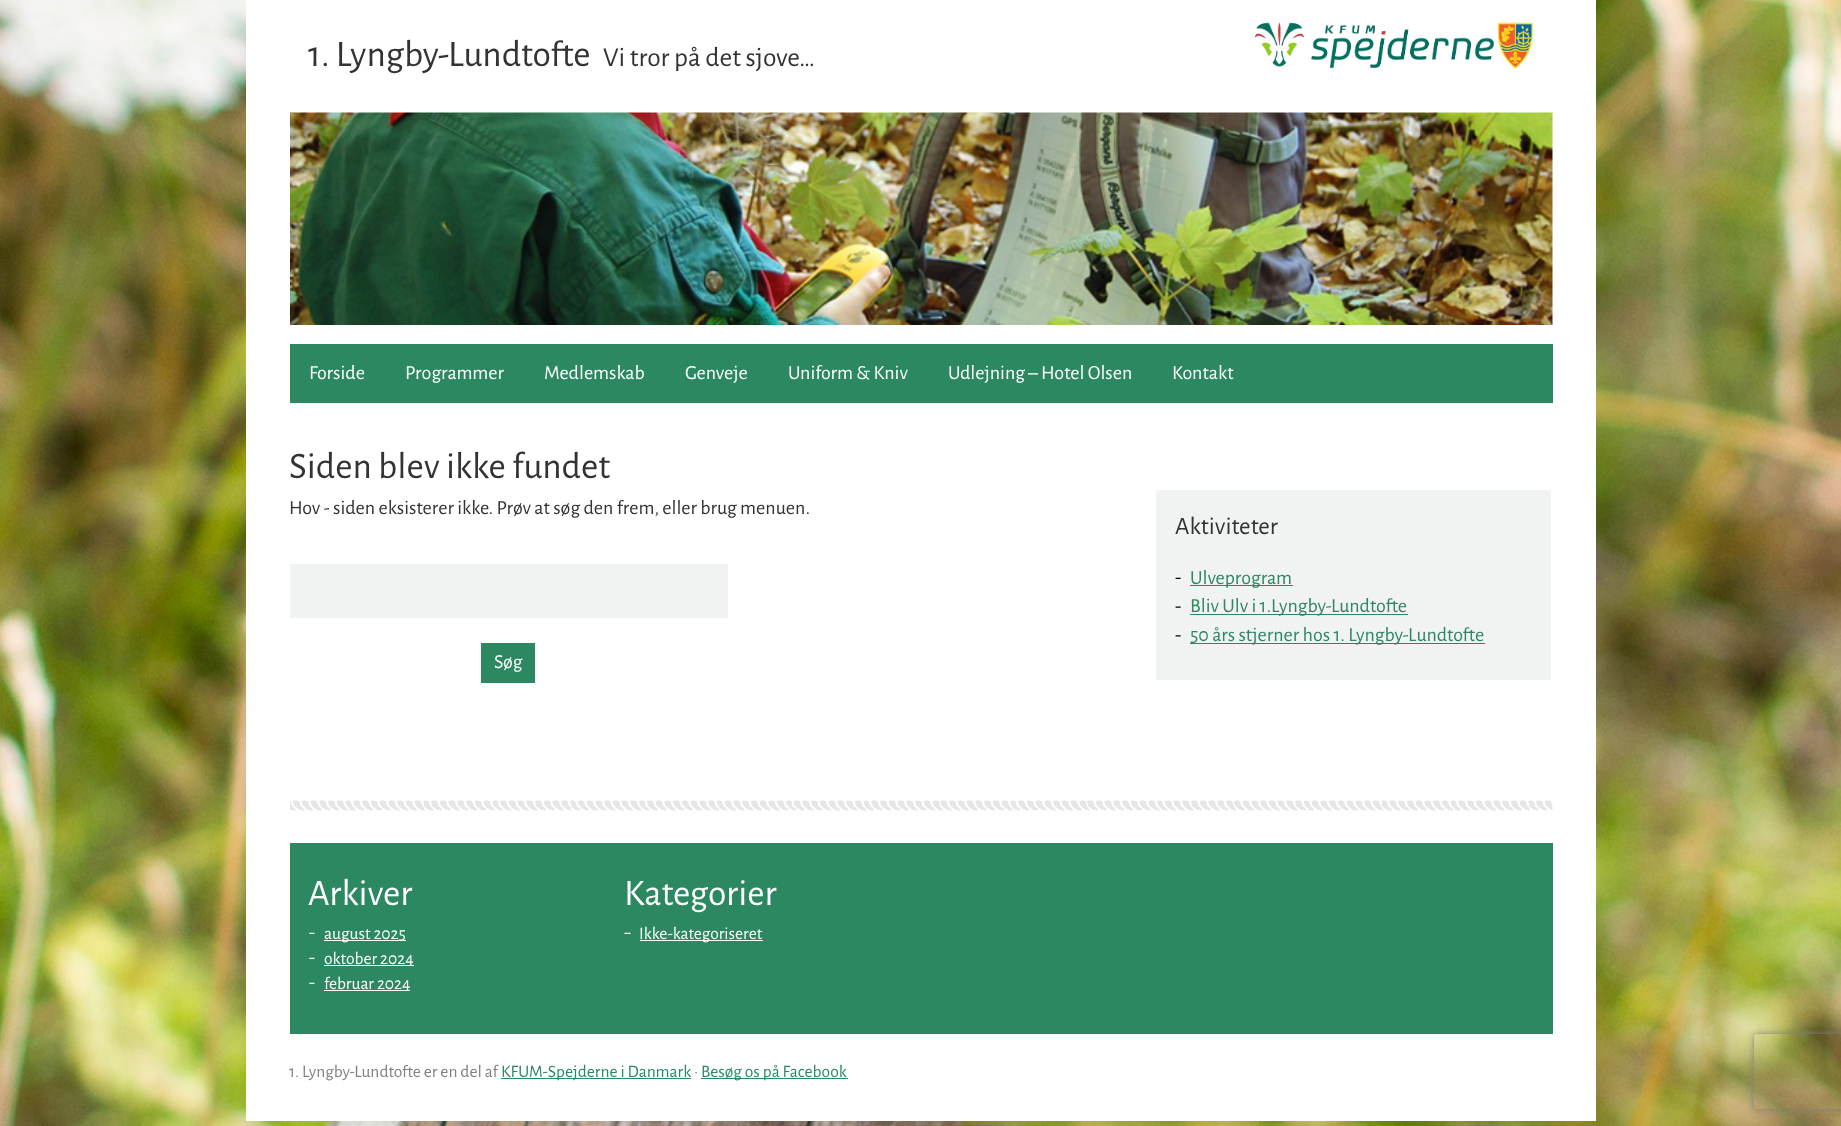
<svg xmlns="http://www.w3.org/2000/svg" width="1841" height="1126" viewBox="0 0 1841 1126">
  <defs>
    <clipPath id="clip1"><path d="M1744 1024H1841V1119H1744ZM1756.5 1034H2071.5C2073 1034 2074 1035 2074 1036.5V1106.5C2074 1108 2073 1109 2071.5 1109H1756.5C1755 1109 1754 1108 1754 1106.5V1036.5C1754 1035 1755 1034 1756.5 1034Z" clip-rule="evenodd"/></clipPath>
  </defs>
  <rect width="100%" height="100%" fill="#fff"/>
  <image x="0" y="0" width="1841" height="1126" href="img/1.png"/>
  <path d="M246 0h1350v1121H246z" fill="#fff"/>
  <image x="1255" y="22" width="279" height="47" href="img/2.png"/>
  <image x="290" y="112" width="1263" height="213" href="img/3.png"/>
  <path d="M290 344h1263v59H290z" fill="#2b8861"/>
  <path d="M290 564h438v54H290z" fill="#f1f2f2"/>
  <path d="M481 643h54v40H481z" fill="#2b8861"/>
  <path d="M1156 490h395v190H1156z" fill="#f1f2f2"/>
  <image x="1175" y="577" width="6" height="2" href="img/4.png"/>
  <path d="M1190 585h103v1H1190z" fill="#2b8861"/>
  <image x="1175" y="606" width="6" height="2" href="img/5.png"/>
  <path d="M1190 614h218v1H1190z" fill="#2b8861"/>
  <image x="1175" y="635" width="6" height="2" href="img/6.png"/>
  <path d="M1190 643h295v1H1190z" fill="#2b8861"/>
  <image x="290" y="800" width="1263" height="11" href="img/7.png"/>
  <path d="M290 843h1263v191H290z" fill="#2b8861"/>
  <image x="309" y="932" width="6" height="2" href="img/8.png"/>
  <path d="M324 940h82v1H324z" fill="#fff"/>
  <image x="309" y="957" width="6" height="2" href="img/8.png"/>
  <path d="M324 965h90v1H324z" fill="#fff"/>
  <image x="309" y="982" width="6" height="2" href="img/8.png"/>
  <path d="M324 990h86v1H324z" fill="#fff"/>
  <image x="624" y="932" width="7" height="2" href="img/9.png"/>
  <path d="M640 940h123v1H640z" fill="#fff"/>
  <path d="M501 1078h190v1H501z" fill="#2b8861"/>
  <path d="M701 1078h147v1H701z" fill="#2b8861"/>
  <g clip-path="url(#clip1)">
    <rect x="1754" y="1034" width="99" height="75" rx="2.5" fill="#808080" filter="blur(3px)"/>
  </g>
  <text x="308" y="66" font-family="Alegreya Sans" font-size="37.5" fill="#333">1. Lyngby-Lundtofte</text>
  <text x="603" y="66" font-family="Alegreya Sans" font-size="27.5" fill="#333">Vi tror på det sjove…</text>
  <g font-family="Alegreya Sans" font-size="20" fill="#fff">
    <text x="309" y="379">Forside</text>
    <text x="405" y="379">Programmer</text>
    <text x="544" y="379">Medlemskab</text>
    <text x="685" y="379">Genveje</text>
    <text x="788" y="379">Uniform &amp; Kniv</text>
    <text x="948" y="379">Udlejning – Hotel Olsen</text>
    <text x="1172" y="379">Kontakt</text>
  </g>
  <text x="289" y="478" font-family="Alegreya Sans" font-size="37.5" fill="#333">Siden blev ikke fundet</text>
  <text x="289" y="514" font-family="Alegreya Sans" font-size="20" fill="#333">Hov - siden eksisterer ikke. Prøv at søg den frem, eller brug menuen.</text>
  <text x="494" y="668" font-family="Alegreya Sans" font-size="20" fill="#fff">Søg</text>
  <text x="1175" y="534" font-family="Alegreya Sans" font-size="25" fill="#333">Aktiviteter</text>
  <g font-family="Alegreya Sans" font-size="20" fill="#2b8861">
    <text x="1190" y="584">Ulveprogram</text>
    <text x="1190" y="612">Bliv Ulv i 1.Lyngby-Lundtofte</text>
    <text x="1190" y="641">50 års stjerner hos 1. Lyngby-Lundtofte</text>
  </g>
  <text x="308" y="905" font-family="Alegreya Sans" font-size="37.5" fill="#fff">Arkiver</text>
  <g font-family="Alegreya Sans" font-size="17.5" fill="#fff">
    <text x="324" y="939">august 2025</text>
    <text x="324" y="964">oktober 2024</text>
    <text x="324" y="989">februar 2024</text>
  </g>
  <text x="624" y="905" font-family="Alegreya Sans" font-size="37.5" fill="#fff">Kategorier</text>
  <text x="639" y="939" font-family="Alegreya Sans" font-size="17.5" fill="#fff">Ikke-kategoriseret</text>
  <text x="289" y="1077" font-family="Alegreya Sans" font-size="17.5" fill="#808285">1. Lyngby-Lundtofte er en del af</text>
  <text x="501" y="1077" font-family="Alegreya Sans" font-size="17.5" fill="#2b8861">KFUM-Spejderne i Danmark</text>
  <text x="694" y="1077" font-family="Alegreya Sans" font-size="17.5" fill="#808285">·</text>
  <text x="701" y="1077" font-family="Alegreya Sans" font-size="17.5" fill="#2b8861">Besøg os på Facebook</text>
</svg>
